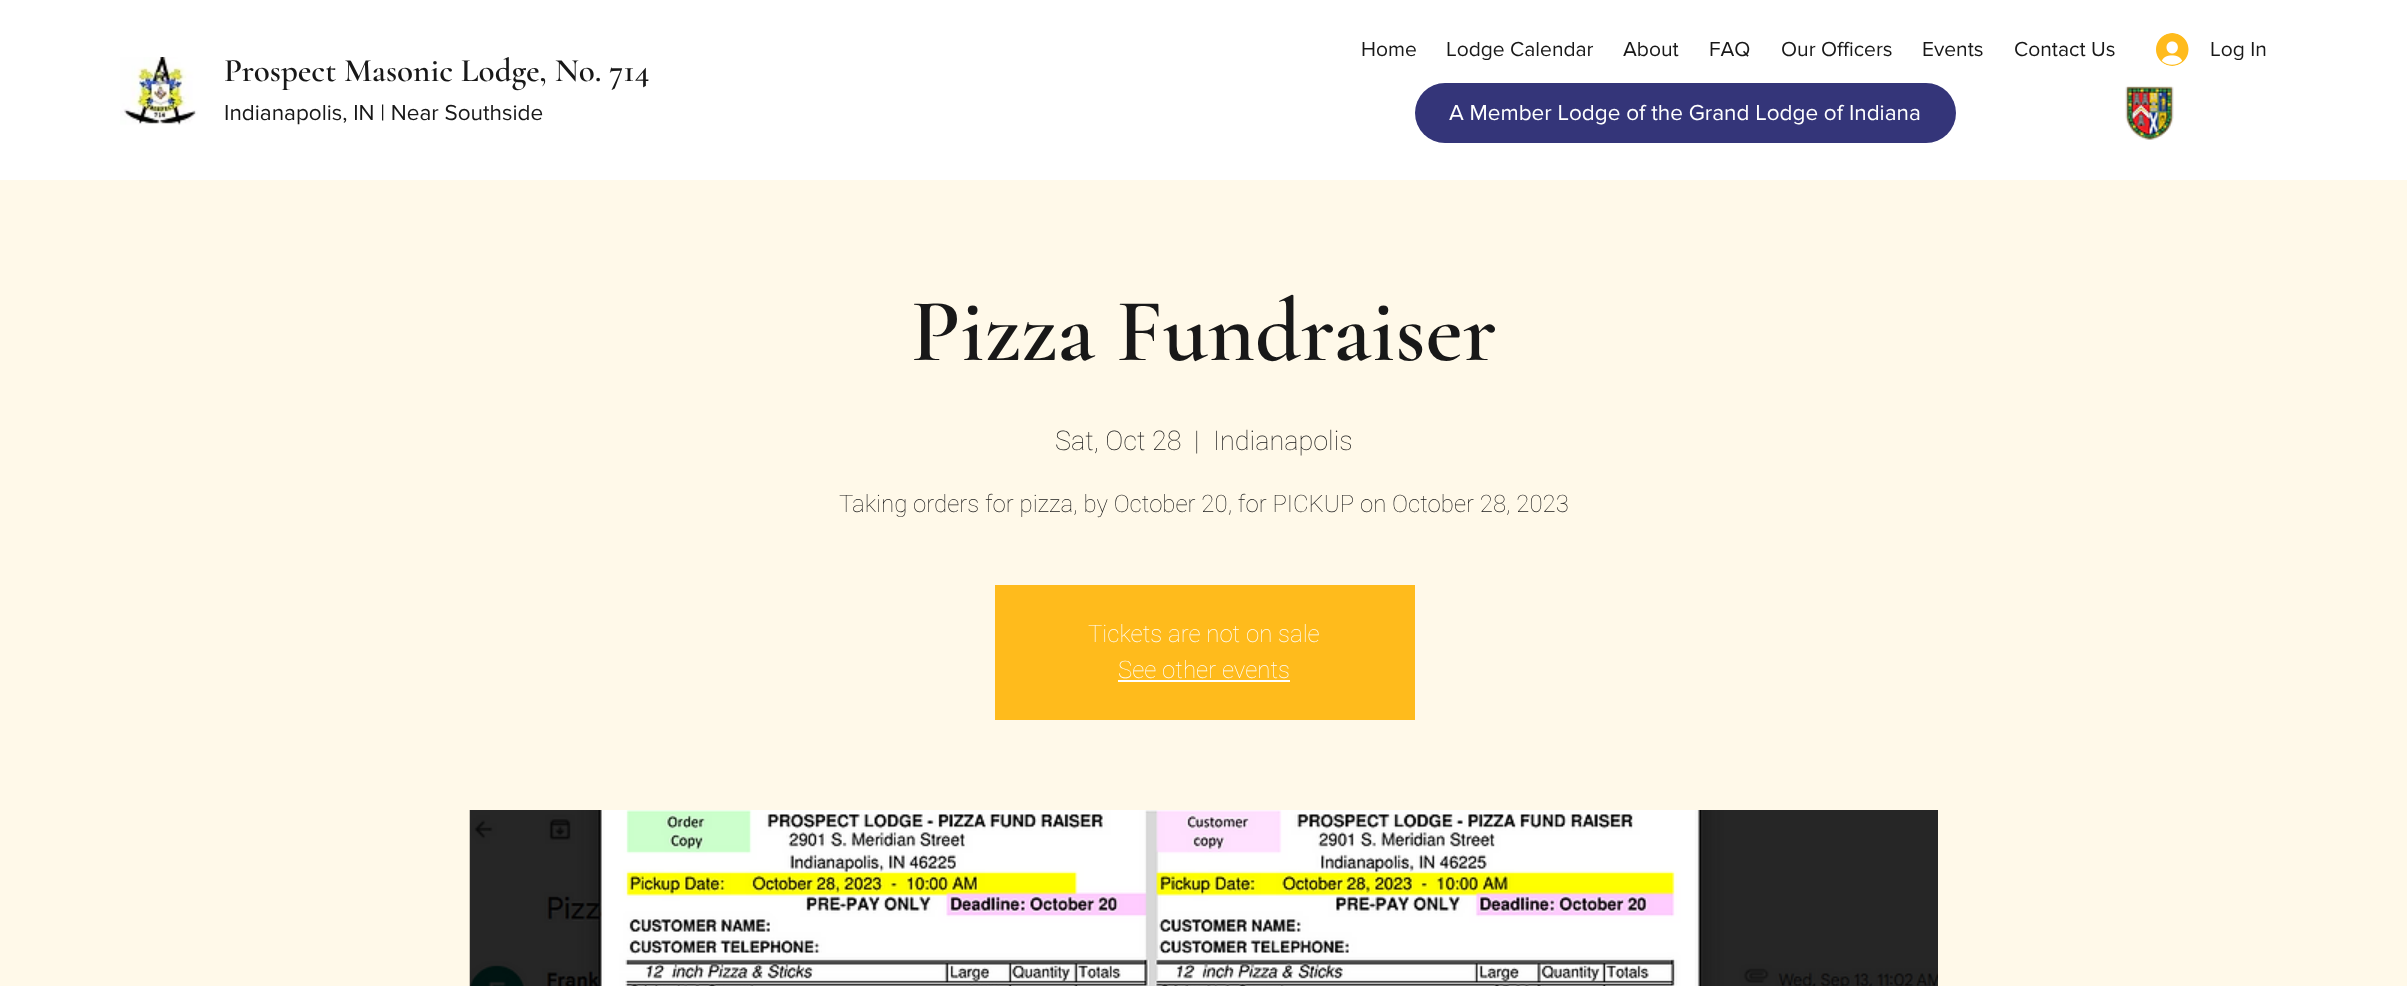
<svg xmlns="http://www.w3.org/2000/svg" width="2407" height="986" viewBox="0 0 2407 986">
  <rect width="100%" height="100%" fill="#fff"/>
  <image x="2156" y="33" width="33" height="33" href="img/1.png"/>
  <image x="120" y="57" width="78" height="68" href="img/2.png"/>
  <rect x="1415" y="83" width="541" height="60" rx="30" fill="#343579"/>
  <image x="2125" y="86" width="49" height="54" href="img/3.png"/>
  <path d="M0 180h2407v806H0z" fill="#fff9e9"/>
  <path d="M995 585h420v135H995z" fill="#ffbb1c"/>
  <path d="M1118 680h172v2H1118z" fill="#fff"/>
  <image x="469" y="810" width="1469" height="176" href="img/4.png"/>
  <g font-family="'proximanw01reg'" font-size="21" fill="#181818">
    <text x="1361" y="56">Home</text>
    <text x="1446" y="56">Lodge Calendar</text>
    <text x="1623" y="56">About</text>
    <text x="1709" y="56">FAQ</text>
    <text x="1781" y="56">Our Officers</text>
    <text x="1922" y="56">Events</text>
    <text x="2014" y="56">Contact Us</text>
    <text x="2210" y="56">Log In</text>
  </g>
  <text x="224" y="81" font-family="Cormorant Garamond" font-size="33" font-weight="600" fill="#181818">Prospect Masonic Lodge, No. 714</text>
  <text x="224" y="120" font-family="'proximanw01reg'" font-size="22.5" fill="#181818">Indianapolis, IN | Near Southside</text>
  <text x="1449" y="120" font-family="'proximanw01reg'" font-size="22.5" fill="#fff">A Member Lodge of the Grand Lodge of Indiana</text>
  <text x="911" y="360" font-family="Cormorant Garamond" font-size="90" font-weight="600" fill="#181818">Pizza Fundraiser</text>
  <g font-family="Roboto" font-size="27" font-weight="100" fill="#181818">
    <text x="1055" y="450">Sat, Oct 28</text>
    <text x="1194" y="450">|</text>
    <text x="1213" y="450">Indianapolis</text>
  </g>
  <text x="839" y="512" font-family="Roboto" font-size="24" font-weight="100" fill="#181818">Taking orders for pizza, by October 20, for PICKUP on October 28, 2023</text>
  <g font-family="Roboto" font-size="24" font-weight="100" fill="#fff">
    <text x="1088" y="642">Tickets are not on sale</text>
    <text x="1118" y="678">See other events</text>
  </g>
</svg>
